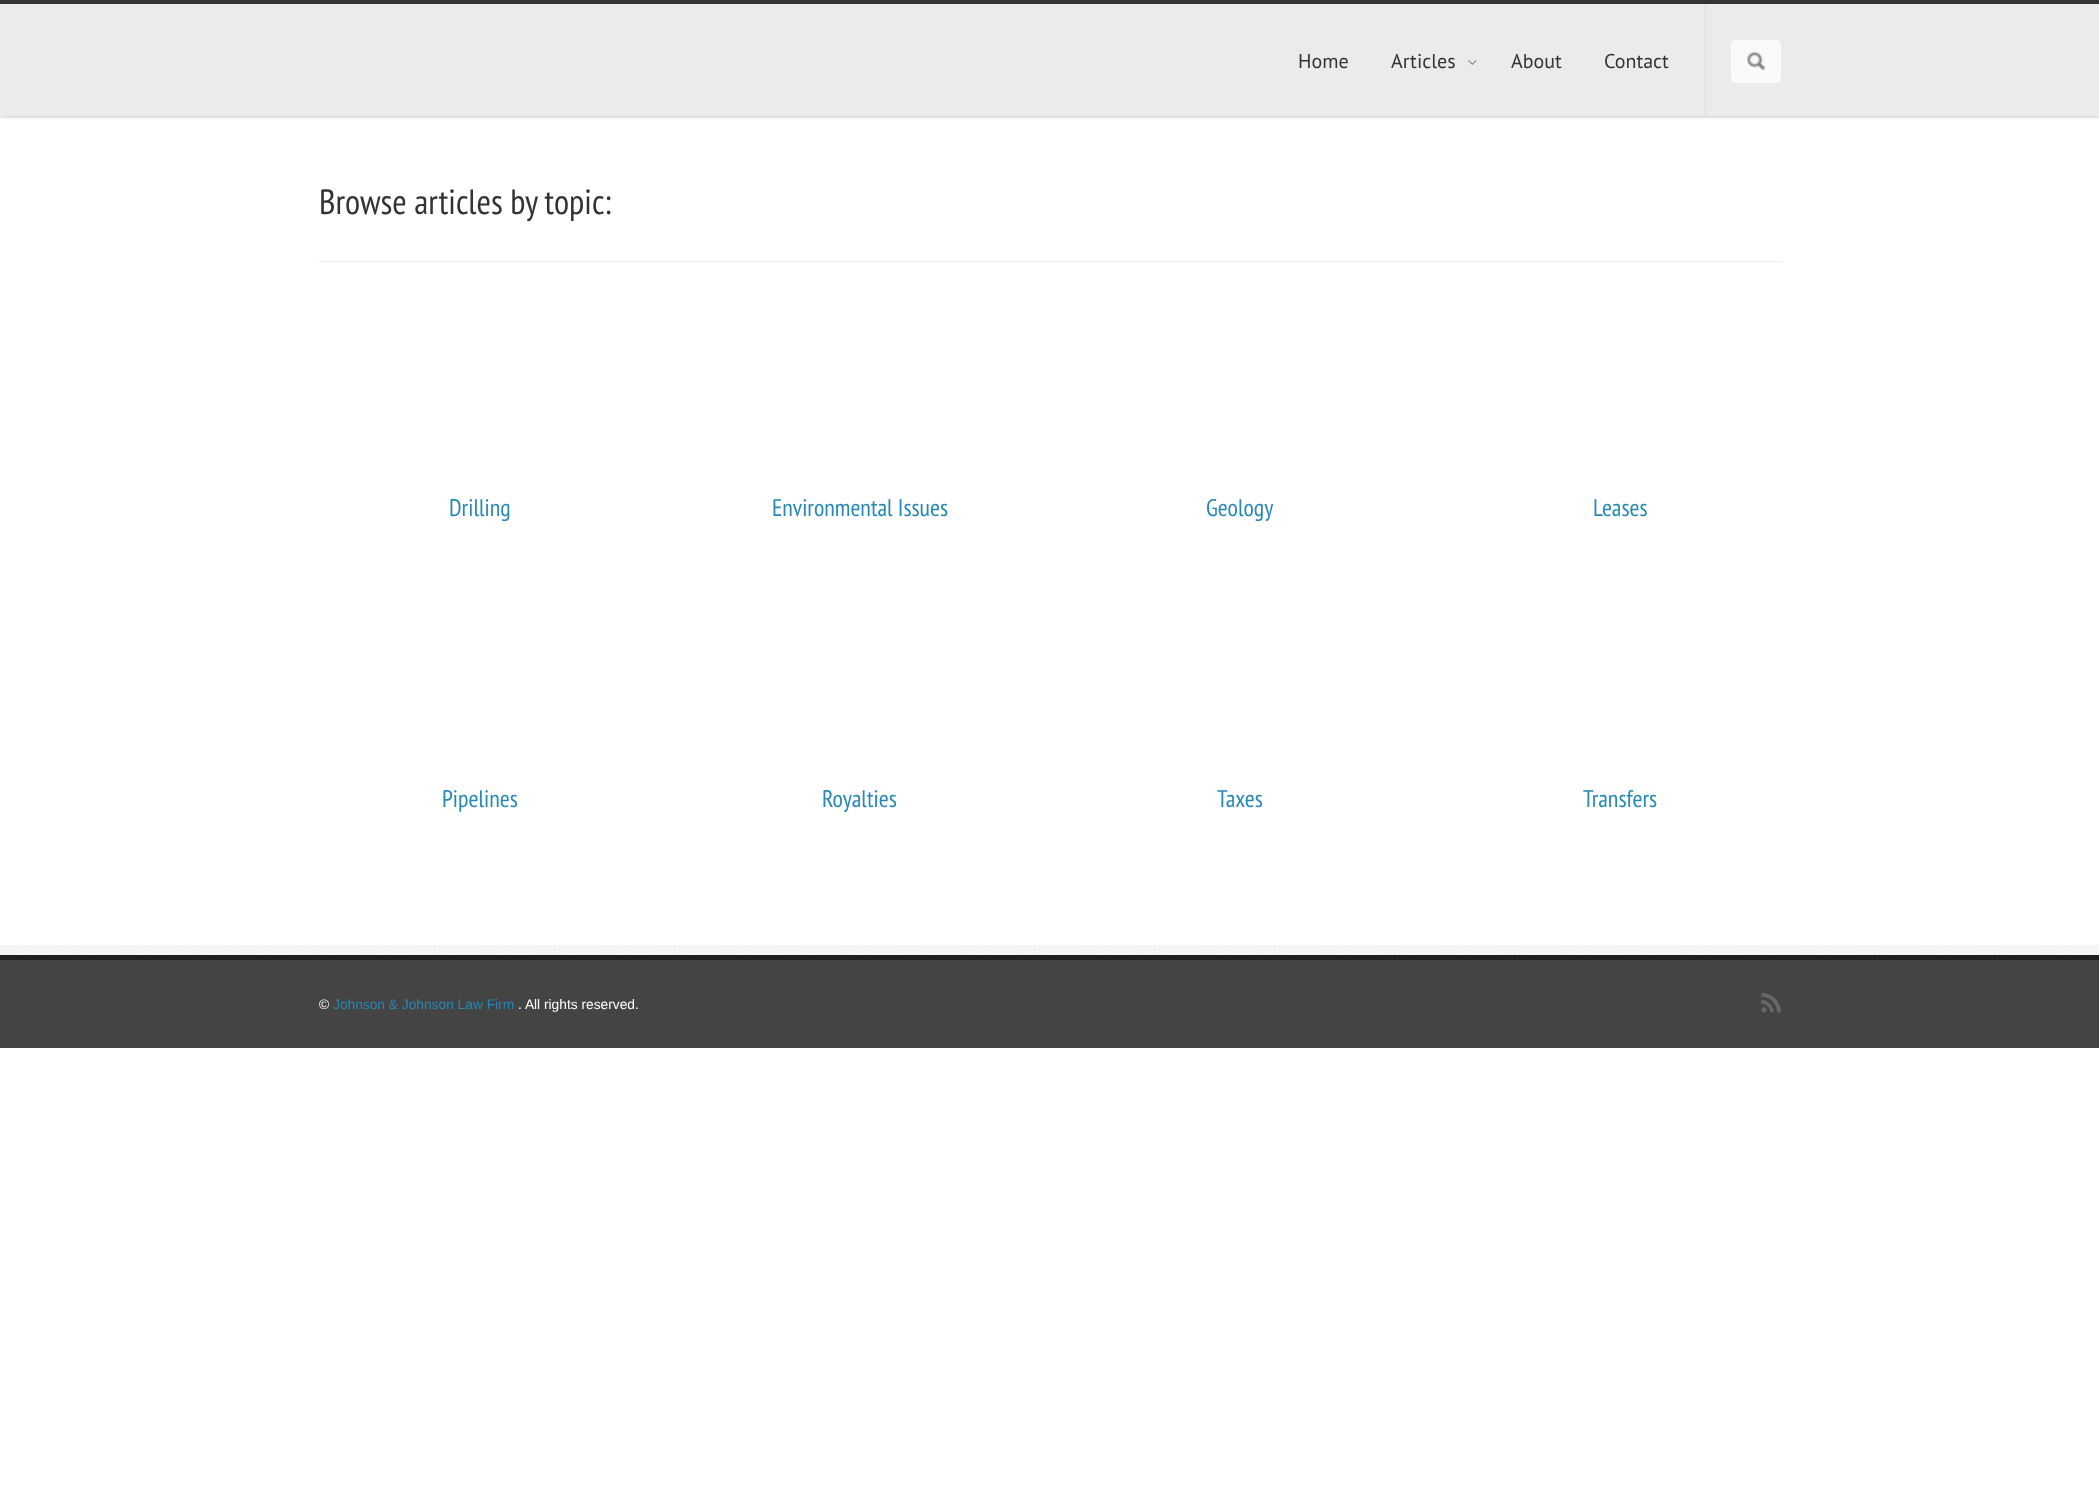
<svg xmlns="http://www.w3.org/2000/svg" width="2099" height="1500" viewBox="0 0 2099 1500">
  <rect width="100%" height="100%" fill="#fff"/>
  <path d="M0 0h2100v116H0z" fill="#00000054" filter="blur(2px)"/>
  <path d="M0 4h2099v112H0z" fill="#ebebeb"/>
  <path d="M0 0h2099v4H0z" fill="#333"/>
  <image x="1468" y="60" width="9" height="5" href="img/1.png"/>
  <path d="M1705 4h1v112H1705z" fill="#ddd"/>
  <rect x="1731" y="40" width="50" height="43" rx="5" fill="#fafafa"/>
  <image x="1747" y="51" width="19" height="20" href="img/2.png"/>
  <path d="M319 261h1462v1H319z" fill="#eee"/>
  <image x="0" y="945" width="2099" height="10" href="img/3.png"/>
  <path d="M0 960h2099v88H0z" fill="#444"/>
  <path d="M0 955h2099v5H0z" fill="#202020"/>
  <image x="1761" y="993" width="20" height="20" href="img/4.png"/>
  <g font-family="PT Sans" font-size="20" fill="#333">
    <text x="1298" y="68">Home</text>
    <text x="1391" y="68">Articles</text>
    <text x="1511" y="68">About</text>
    <text x="1604" y="68">Contact</text>
  </g>
  <text x="319" y="214" font-family="PT Sans Narrow" font-size="35" fill="#333">Browse articles by topic:</text>
  <g font-family="PT Sans Narrow" font-size="24" fill="#2688b5">
    <text x="449" y="516">Drilling</text>
    <text x="772" y="516">Environmental Issues</text>
    <text x="1206" y="516">Geology</text>
    <text x="1593" y="516">Leases</text>
    <text x="442" y="807">Pipelines</text>
    <text x="822" y="807">Royalties</text>
    <text x="1217" y="807">Taxes</text>
    <text x="1583" y="807">Transfers</text>
  </g>
  <text x="319" y="1009" font-family="Liberation Sans" font-size="13.75" fill="#fff">©</text>
  <text x="333" y="1009" font-family="Liberation Sans" font-size="13.75" fill="#2688b5">Johnson &amp; Johnson Law Firm</text>
  <text x="518" y="1009" font-family="Liberation Sans" font-size="13.75" fill="#fff">. All rights reserved.</text>
</svg>
